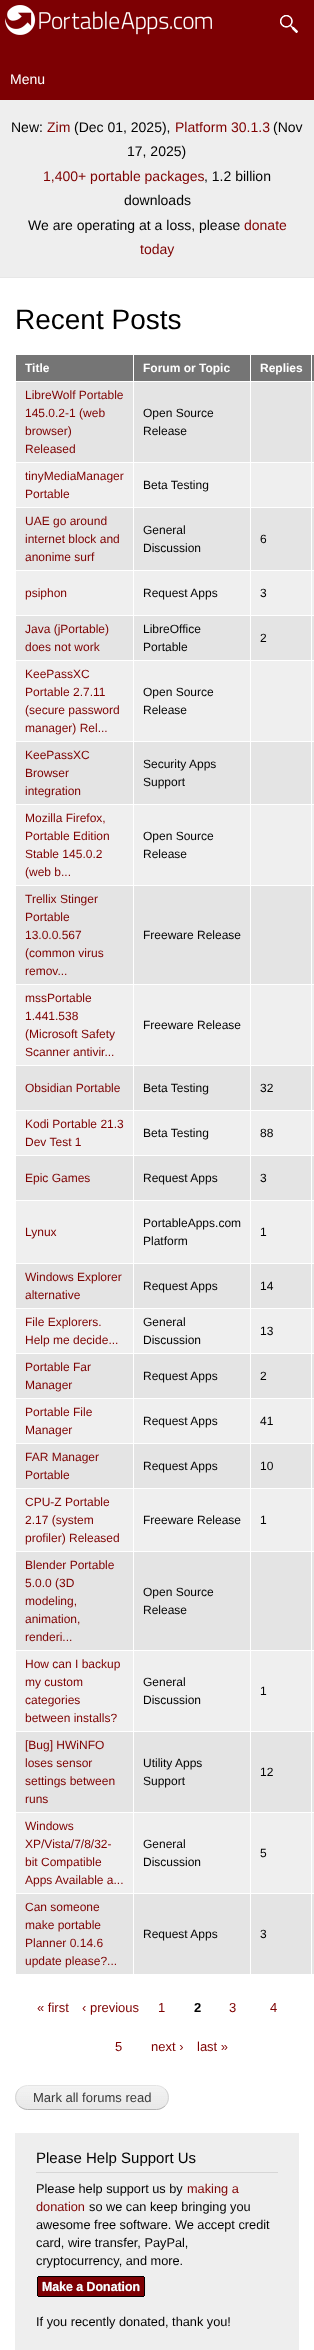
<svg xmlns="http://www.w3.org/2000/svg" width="314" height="2350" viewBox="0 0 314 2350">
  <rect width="100%" height="100%" fill="#fff"/>
  <path d="M0 0h314v100H0z" fill="#7d0003"/>
  <image x="5" y="5" width="207" height="30" href="img/1.png"/>
  <image x="280" y="15" width="18" height="18" href="img/2.png"/>
  <path d="M0 100h314v177H0z" fill="#eee"/>
  <path d="M0 277h314v1H0z" fill="#e7e7e7"/>
  <path d="M16 355h117v26H16z" fill="#757575"/>
  <path d="M134 355h116v26H134z" fill="#757575"/>
  <path d="M251 355h60v26H251z" fill="#757575"/>
  <path d="M312 354h2v27H312z" fill="#757575"/>
  <path d="M311 354h3v1H311z" fill="#fff"/>
  <path d="M16 382h298v80H16z" fill="#e4e4e4"/>
  <path d="M16 463h298v44H16z" fill="#efefef"/>
  <path d="M16 508h298v62H16z" fill="#e4e4e4"/>
  <path d="M16 571h298v44H16z" fill="#efefef"/>
  <path d="M16 616h298v44H16z" fill="#e4e4e4"/>
  <path d="M16 661h298v80H16z" fill="#efefef"/>
  <path d="M16 742h298v62H16z" fill="#e4e4e4"/>
  <path d="M16 805h298v80H16z" fill="#efefef"/>
  <path d="M16 886h298v98H16z" fill="#e4e4e4"/>
  <path d="M16 985h298v80H16z" fill="#efefef"/>
  <path d="M16 1066h298v44H16z" fill="#e4e4e4"/>
  <path d="M16 1111h298v44H16z" fill="#efefef"/>
  <path d="M16 1156h298v44H16z" fill="#e4e4e4"/>
  <path d="M16 1201h298v62H16z" fill="#efefef"/>
  <path d="M16 1264h298v44H16z" fill="#e4e4e4"/>
  <path d="M16 1309h298v44H16z" fill="#efefef"/>
  <path d="M16 1354h298v44H16z" fill="#e4e4e4"/>
  <path d="M16 1399h298v44H16z" fill="#efefef"/>
  <path d="M16 1444h298v44H16z" fill="#e4e4e4"/>
  <path d="M16 1489h298v62H16z" fill="#efefef"/>
  <path d="M16 1552h298v98H16z" fill="#e4e4e4"/>
  <path d="M16 1651h298v80H16z" fill="#efefef"/>
  <path d="M16 1732h298v80H16z" fill="#e4e4e4"/>
  <path d="M16 1813h298v80H16z" fill="#efefef"/>
  <path d="M16 1894h298v80H16z" fill="#e4e4e4"/>
  <path d="M133 381h1v1594H133z" fill="#fff"/>
  <path d="M250 381h1v1594H250z" fill="#fff"/>
  <path d="M311 381h1v1594H311z" fill="#fff"/>
  <image x="15" y="2086" width="154" height="24" href="img/3.png"/>
  <path d="M19 2089C21.5 2087 24.5 2085.5 27.5 2085.5H156.5C159.5 2085.5 162.5 2087 165 2089" fill="none" stroke="#e4e4e4"/>
  <path d="M165 2089C169.5 2093.5 169.5 2101.5 165 2106" fill="none" stroke="#d2d2d2"/>
  <path d="M165 2106C162.5 2108 159.5 2109.5 156.5 2109.5H27.5C24.5 2109.5 21.5 2108 19 2106" fill="none" stroke="#b4b4b4"/>
  <path d="M19 2106C14.5 2101.5 14.5 2093.5 19 2089" fill="none" stroke="#d2d2d2"/>
  <path d="M15 2133h284v217H15z" fill="#eee"/>
  <path d="M36 2172h242v1H36z" fill="#d6d6d6"/>
  <image x="37" y="2276" width="109" height="21" href="img/4.png"/>
  <text x="10" y="84" font-family="Arimo" font-size="14" fill="#fff">Menu</text>
  <text x="11" y="132" font-family="Arimo" font-size="14" fill="#000">New:</text>
  <text x="47" y="132" font-family="Arimo" font-size="14" fill="#7d0000">Zim</text>
  <text x="74" y="132" font-family="Arimo" font-size="14" fill="#000">(Dec 01, 2025),</text>
  <text x="175" y="132" font-family="Arimo" font-size="14" fill="#7d0000">Platform 30.1.3</text>
  <g font-family="Arimo" font-size="14" fill="#000">
    <text x="273" y="132">(Nov</text>
    <text x="127" y="156">17, 2025)</text>
  </g>
  <text x="43" y="181" font-family="Arimo" font-size="14" fill="#7d0000">1,400+ portable packages</text>
  <g font-family="Arimo" font-size="14" fill="#000">
    <text x="204" y="181">, 1.2 billion</text>
    <text x="124" y="205">downloads</text>
    <text x="28" y="230">We are operating at a loss, please</text>
  </g>
  <g font-family="Arimo" font-size="14" fill="#7d0000">
    <text x="244" y="230">donate</text>
    <text x="140" y="254">today</text>
  </g>
  <text x="15" y="329" font-family="Arimo" font-size="28" fill="#000">Recent Posts</text>
  <g font-family="Arimo" font-size="12" font-weight="bold" fill="#fff">
    <text x="25" y="372">Title</text>
    <text x="143" y="372">Forum or Topic</text>
    <text x="260" y="372">Replies</text>
  </g>
  <g font-family="Arimo" font-size="12" fill="#7d0000">
    <text x="25" y="399">LibreWolf Portable</text>
    <text x="25" y="417">145.0.2-1 (web</text>
    <text x="25" y="435">browser)</text>
    <text x="25" y="453">Released</text>
  </g>
  <g font-family="Arimo" font-size="12" fill="#000">
    <text x="143" y="417">Open Source</text>
    <text x="143" y="435">Release</text>
  </g>
  <g font-family="Arimo" font-size="12" fill="#7d0000">
    <text x="25" y="480">tinyMediaManager</text>
    <text x="25" y="498">Portable</text>
  </g>
  <text x="143" y="489" font-family="Arimo" font-size="12" fill="#000">Beta Testing</text>
  <g font-family="Arimo" font-size="12" fill="#7d0000">
    <text x="25" y="525">UAE go around</text>
    <text x="25" y="543">internet block and</text>
    <text x="25" y="561">anonime surf</text>
  </g>
  <g font-family="Arimo" font-size="12" fill="#000">
    <text x="143" y="534">General</text>
    <text x="143" y="552">Discussion</text>
    <text x="260" y="543">6</text>
  </g>
  <text x="25" y="597" font-family="Arimo" font-size="12" fill="#7d0000">psiphon</text>
  <g font-family="Arimo" font-size="12" fill="#000">
    <text x="143" y="597">Request Apps</text>
    <text x="260" y="597">3</text>
  </g>
  <g font-family="Arimo" font-size="12" fill="#7d0000">
    <text x="25" y="633">Java (jPortable)</text>
    <text x="25" y="651">does not work</text>
  </g>
  <g font-family="Arimo" font-size="12" fill="#000">
    <text x="143" y="633">LibreOffice</text>
    <text x="143" y="651">Portable</text>
    <text x="260" y="642">2</text>
  </g>
  <g font-family="Arimo" font-size="12" fill="#7d0000">
    <text x="25" y="678">KeePassXC</text>
    <text x="25" y="696">Portable 2.7.11</text>
    <text x="25" y="714">(secure password</text>
    <text x="25" y="732">manager) Rel...</text>
  </g>
  <g font-family="Arimo" font-size="12" fill="#000">
    <text x="143" y="696">Open Source</text>
    <text x="143" y="714">Release</text>
  </g>
  <g font-family="Arimo" font-size="12" fill="#7d0000">
    <text x="25" y="759">KeePassXC</text>
    <text x="25" y="777">Browser</text>
    <text x="25" y="795">integration</text>
  </g>
  <g font-family="Arimo" font-size="12" fill="#000">
    <text x="143" y="768">Security Apps</text>
    <text x="143" y="786">Support</text>
  </g>
  <g font-family="Arimo" font-size="12" fill="#7d0000">
    <text x="25" y="822">Mozilla Firefox,</text>
    <text x="25" y="840">Portable Edition</text>
    <text x="25" y="858">Stable 145.0.2</text>
    <text x="25" y="876">(web b...</text>
  </g>
  <g font-family="Arimo" font-size="12" fill="#000">
    <text x="143" y="840">Open Source</text>
    <text x="143" y="858">Release</text>
  </g>
  <g font-family="Arimo" font-size="12" fill="#7d0000">
    <text x="25" y="903">Trellix Stinger</text>
    <text x="25" y="921">Portable</text>
    <text x="25" y="939">13.0.0.567</text>
    <text x="25" y="957">(common virus</text>
    <text x="25" y="975">remov...</text>
  </g>
  <text x="143" y="939" font-family="Arimo" font-size="12" fill="#000">Freeware Release</text>
  <g font-family="Arimo" font-size="12" fill="#7d0000">
    <text x="25" y="1002">mssPortable</text>
    <text x="25" y="1020">1.441.538</text>
    <text x="25" y="1038">(Microsoft Safety</text>
    <text x="25" y="1056">Scanner antivir...</text>
  </g>
  <text x="143" y="1029" font-family="Arimo" font-size="12" fill="#000">Freeware Release</text>
  <text x="25" y="1092" font-family="Arimo" font-size="12" fill="#7d0000">Obsidian Portable</text>
  <g font-family="Arimo" font-size="12" fill="#000">
    <text x="143" y="1092">Beta Testing</text>
    <text x="260" y="1092">32</text>
  </g>
  <g font-family="Arimo" font-size="12" fill="#7d0000">
    <text x="25" y="1128">Kodi Portable 21.3</text>
    <text x="25" y="1146">Dev Test 1</text>
  </g>
  <g font-family="Arimo" font-size="12" fill="#000">
    <text x="143" y="1137">Beta Testing</text>
    <text x="260" y="1137">88</text>
  </g>
  <text x="25" y="1182" font-family="Arimo" font-size="12" fill="#7d0000">Epic Games</text>
  <g font-family="Arimo" font-size="12" fill="#000">
    <text x="143" y="1182">Request Apps</text>
    <text x="260" y="1182">3</text>
  </g>
  <text x="25" y="1236" font-family="Arimo" font-size="12" fill="#7d0000">Lynux</text>
  <g font-family="Arimo" font-size="12" fill="#000">
    <text x="143" y="1227">PortableApps.com</text>
    <text x="143" y="1245">Platform</text>
    <text x="260" y="1236">1</text>
  </g>
  <g font-family="Arimo" font-size="12" fill="#7d0000">
    <text x="25" y="1281">Windows Explorer</text>
    <text x="25" y="1299">alternative</text>
  </g>
  <g font-family="Arimo" font-size="12" fill="#000">
    <text x="143" y="1290">Request Apps</text>
    <text x="260" y="1290">14</text>
  </g>
  <g font-family="Arimo" font-size="12" fill="#7d0000">
    <text x="25" y="1326">File Explorers.</text>
    <text x="25" y="1344">Help me decide...</text>
  </g>
  <g font-family="Arimo" font-size="12" fill="#000">
    <text x="143" y="1326">General</text>
    <text x="143" y="1344">Discussion</text>
    <text x="260" y="1335">13</text>
  </g>
  <g font-family="Arimo" font-size="12" fill="#7d0000">
    <text x="25" y="1371">Portable Far</text>
    <text x="25" y="1389">Manager</text>
  </g>
  <g font-family="Arimo" font-size="12" fill="#000">
    <text x="143" y="1380">Request Apps</text>
    <text x="260" y="1380">2</text>
  </g>
  <g font-family="Arimo" font-size="12" fill="#7d0000">
    <text x="25" y="1416">Portable File</text>
    <text x="25" y="1434">Manager</text>
  </g>
  <g font-family="Arimo" font-size="12" fill="#000">
    <text x="143" y="1425">Request Apps</text>
    <text x="260" y="1425">41</text>
  </g>
  <g font-family="Arimo" font-size="12" fill="#7d0000">
    <text x="25" y="1461">FAR Manager</text>
    <text x="25" y="1479">Portable</text>
  </g>
  <g font-family="Arimo" font-size="12" fill="#000">
    <text x="143" y="1470">Request Apps</text>
    <text x="260" y="1470">10</text>
  </g>
  <g font-family="Arimo" font-size="12" fill="#7d0000">
    <text x="25" y="1506">CPU-Z Portable</text>
    <text x="25" y="1524">2.17 (system</text>
    <text x="25" y="1542">profiler) Released</text>
  </g>
  <g font-family="Arimo" font-size="12" fill="#000">
    <text x="143" y="1524">Freeware Release</text>
    <text x="260" y="1524">1</text>
  </g>
  <g font-family="Arimo" font-size="12" fill="#7d0000">
    <text x="25" y="1569">Blender Portable</text>
    <text x="25" y="1587">5.0.0 (3D</text>
    <text x="25" y="1605">modeling,</text>
    <text x="25" y="1623">animation,</text>
    <text x="25" y="1641">renderi...</text>
  </g>
  <g font-family="Arimo" font-size="12" fill="#000">
    <text x="143" y="1596">Open Source</text>
    <text x="143" y="1614">Release</text>
  </g>
  <g font-family="Arimo" font-size="12" fill="#7d0000">
    <text x="25" y="1668">How can I backup</text>
    <text x="25" y="1686">my custom</text>
    <text x="25" y="1704">categories</text>
    <text x="25" y="1722">between installs?</text>
  </g>
  <g font-family="Arimo" font-size="12" fill="#000">
    <text x="143" y="1686">General</text>
    <text x="143" y="1704">Discussion</text>
    <text x="260" y="1695">1</text>
  </g>
  <g font-family="Arimo" font-size="12" fill="#7d0000">
    <text x="25" y="1749">[Bug] HWiNFO</text>
    <text x="25" y="1767">loses sensor</text>
    <text x="25" y="1785">settings between</text>
    <text x="25" y="1803">runs</text>
  </g>
  <g font-family="Arimo" font-size="12" fill="#000">
    <text x="143" y="1767">Utility Apps</text>
    <text x="143" y="1785">Support</text>
    <text x="260" y="1776">12</text>
  </g>
  <g font-family="Arimo" font-size="12" fill="#7d0000">
    <text x="25" y="1830">Windows</text>
    <text x="25" y="1848">XP/Vista/7/8/32-</text>
    <text x="25" y="1866">bit Compatible</text>
    <text x="25" y="1884">Apps Available a...</text>
  </g>
  <g font-family="Arimo" font-size="12" fill="#000">
    <text x="143" y="1848">General</text>
    <text x="143" y="1866">Discussion</text>
    <text x="260" y="1857">5</text>
  </g>
  <g font-family="Arimo" font-size="12" fill="#7d0000">
    <text x="25" y="1911">Can someone</text>
    <text x="25" y="1929">make portable</text>
    <text x="25" y="1947">Planner 0.14.6</text>
    <text x="25" y="1965">update please?...</text>
  </g>
  <g font-family="Arimo" font-size="12" fill="#000">
    <text x="143" y="1938">Request Apps</text>
    <text x="260" y="1938">3</text>
  </g>
  <g font-family="Arimo" font-size="13" fill="#7d0000">
    <text x="37" y="2012">« first</text>
    <text x="82" y="2012">‹ previous</text>
    <text x="158" y="2012">1</text>
  </g>
  <text x="194" y="2012" font-family="Arimo" font-size="13" font-weight="bold" fill="#000">2</text>
  <g font-family="Arimo" font-size="13" fill="#7d0000">
    <text x="229" y="2012">3</text>
    <text x="270" y="2012">4</text>
    <text x="115" y="2051">5</text>
    <text x="151" y="2051">next ›</text>
    <text x="197" y="2051">last »</text>
  </g>
  <text x="33" y="2102" font-family="Arimo" font-size="13" fill="#3a3a3a">Mark all forums read</text>
  <text x="36" y="2163" font-family="Arimo" font-size="15" fill="#000">Please Help Support Us</text>
  <text x="36" y="2193" font-family="Arimo" font-size="12.75" fill="#000">Please help support us by</text>
  <g font-family="Arimo" font-size="12.75" fill="#7d0000">
    <text x="187" y="2193">making a</text>
    <text x="36" y="2211">donation</text>
  </g>
  <g font-family="Arimo" font-size="12.75" fill="#000">
    <text x="89" y="2211">so we can keep bringing you</text>
    <text x="36" y="2229">awesome free software. We accept credit</text>
    <text x="36" y="2247">card, wire transfer, PayPal,</text>
    <text x="36" y="2265">cryptocurrency, and more.</text>
    <text x="36" y="2326">If you recently donated, thank you!</text>
  </g>
</svg>
